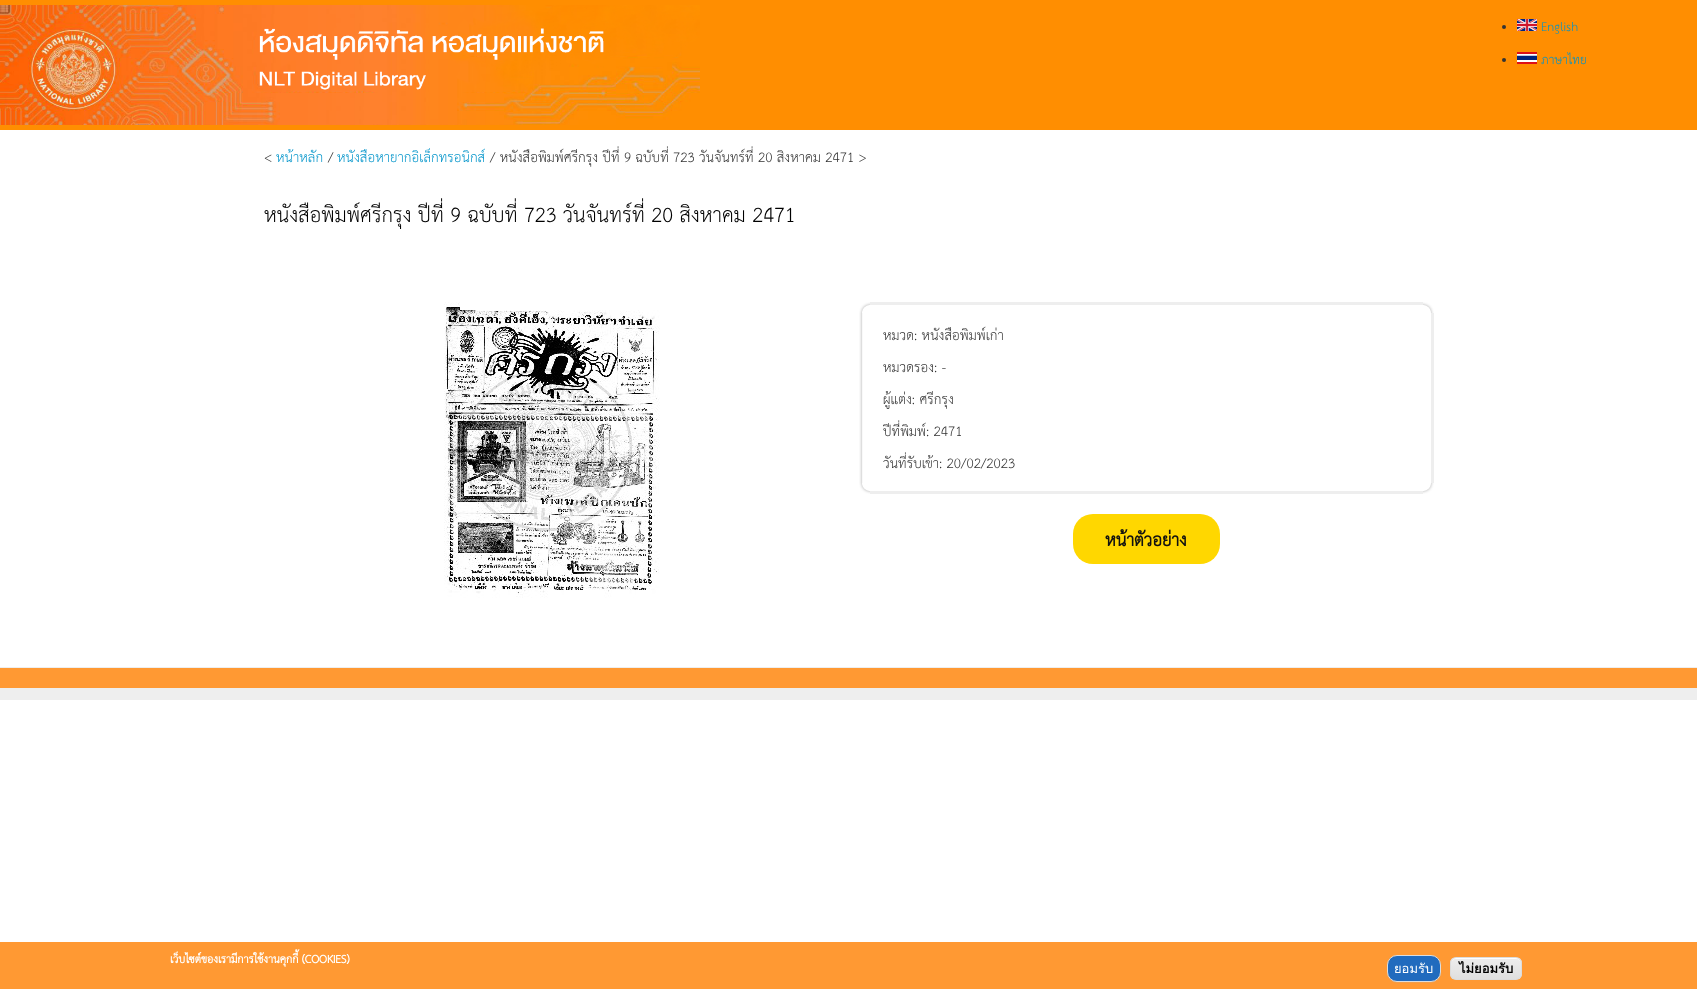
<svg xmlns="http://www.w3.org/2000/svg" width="1697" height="989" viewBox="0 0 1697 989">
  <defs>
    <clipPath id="clip1"><rect x="1450" y="957" width="72" height="23" rx="6"/></clipPath>
    <linearGradient id="g1" gradientUnits="userSpaceOnUse" x1="1486" y1="958" x2="1486" y2="979"><stop offset="0.05" stop-color="#ededed"/><stop offset="1" stop-color="#dfdfdf"/></linearGradient>
  </defs>
  <rect width="100%" height="100%" fill="#fff"/>
  <path d="M0 0h1697v130H0z" fill="#ff8e01"/>
  <image x="0" y="5" width="700" height="120" href="img/1.png"/>
  <circle cx="1504" cy="27" r="2" fill="#333"/>
  <image x="1517" y="19" width="20" height="12" href="img/2.png"/>
  <circle cx="1504" cy="60" r="2" fill="#333"/>
  <image x="1517" y="52" width="20" height="12" href="img/3.png"/>
  <image x="444" y="302" width="216" height="296" href="img/4.png"/>
  <path d="M870 302h553v3H870z" fill="#eee"/>
  <image x="859" y="302" width="11" height="11" href="img/5.png"/>
  <image x="1423" y="302" width="11" height="11" href="img/6.png"/>
  <image x="859" y="313" width="4" height="170" href="img/7.png"/>
  <path d="M1431 313h3v170H1431z" fill="#eee"/>
  <path d="M870 491h553v3H870z" fill="#eee"/>
  <image x="859" y="483" width="11" height="11" href="img/8.png"/>
  <image x="1423" y="483" width="11" height="11" href="img/9.png"/>
  <rect x="1073" y="514" width="147" height="50" rx="20" fill="#ffd700"/>
  <path d="M0 668h1697v20H0z" fill="#f93"/>
  <path d="M0 667h1697v1H0z" fill="#eee"/>
  <path d="M0 688h1697v12H0z" fill="#eee"/>
  <path d="M0 942h1697v47H0z" fill="#f93"/>
  <rect x="1387" y="956" width="54" height="27" rx="10" fill="#b4b4b433" filter="blur(0.5px)"/>
  <rect x="1387.5" y="955.5" width="53" height="26" rx="9.5" fill="#216bbe" stroke="#ddd"/>
  <g clip-path="url(#clip1)">
    <path d="M1450 958h72v21H1450z" fill="url(#g1)"/>
  </g>
  <path d="M1456 959H1516C1519 959 1521 961 1521 964C1521 956 1512 958 1506 958H1466C1460 958 1451 956 1451 964C1451 961 1453 959 1456 959Z" fill="#fff"/>
  <rect x="1450.5" y="957.5" width="71" height="22" rx="5.5" fill="none" stroke="#dcdcdc"/>
  <g font-family="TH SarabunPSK" font-size="18" fill="#0194ca">
    <text x="1541" y="31">English</text>
    <text x="1541" y="64">ภาษาไทย</text>
  </g>
  <text x="264" y="162" font-family="TH SarabunPSK" font-size="20" fill="#333">&lt;</text>
  <text x="276" y="162" font-family="TH SarabunPSK" font-size="20" fill="#0194ca">หน้าหลัก</text>
  <text x="328" y="162" font-family="TH SarabunPSK" font-size="20" fill="#333">/</text>
  <text x="337" y="162" font-family="TH SarabunPSK" font-size="20" fill="#0194ca">หนังสือหายากอิเล็กทรอนิกส์</text>
  <text x="490" y="162" font-family="TH SarabunPSK" font-size="20" fill="#333">/ หนังสือพิมพ์ศรีกรุง ปีที่ 9 ฉบับที่ 723 วันจันทร์ที่ 20 สิงหาคม 2471 &gt;</text>
  <text x="264" y="222" font-family="TH SarabunPSK" font-size="30" fill="#000">หนังสือพิมพ์ศรีกรุง ปีที่ 9 ฉบับที่ 723 วันจันทร์ที่ 20 สิงหาคม 2471</text>
  <g font-family="TH SarabunPSK" font-size="20" fill="#333">
    <text x="883" y="340">หมวด: หนังสือพิมพ์เก่า</text>
    <text x="883" y="372">หมวดรอง: -</text>
    <text x="883" y="404">ผู้แต่ง: ศรีกรุง</text>
    <text x="883" y="436">ปีที่พิมพ์: 2471</text>
    <text x="883" y="468">วันที่รับเข้า: 20/02/2023</text>
  </g>
  <text x="1105" y="546" font-family="TH SarabunPSK" font-size="25" font-weight="bold" fill="#111">หน้าตัวอย่าง</text>
  <text x="170" y="963" font-family="TH SarabunPSK" font-size="16" font-weight="bold" fill="#fff">เว็บไซต์ของเรามีการใช้งานคุกกี้ (COOKIES)</text>
  <text x="1394" y="973" font-family="Loma" font-size="13" fill="#fff">ยอมรับ</text>
  <text x="1459" y="973" font-family="Loma" font-size="13" font-weight="bold" fill="#000">ไม่ยอมรับ</text>
</svg>
